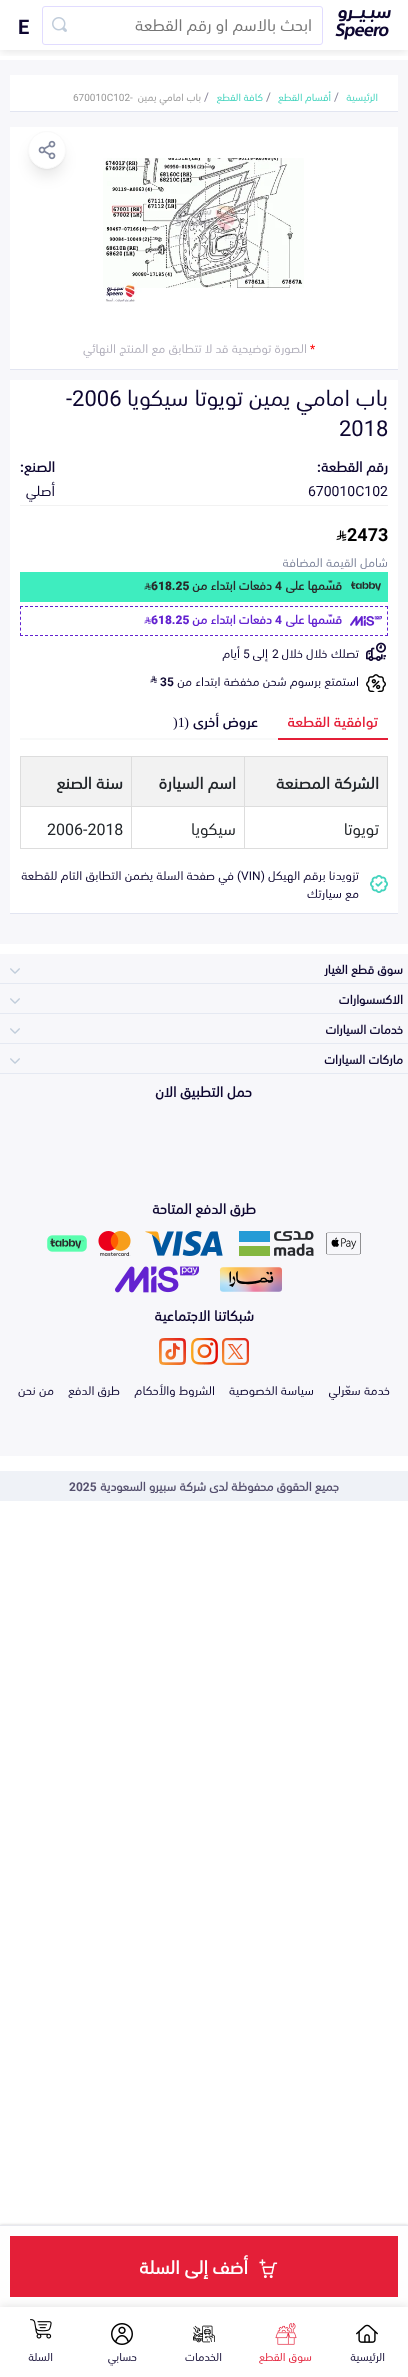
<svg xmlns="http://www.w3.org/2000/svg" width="408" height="2377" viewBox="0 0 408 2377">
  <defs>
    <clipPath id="clip1"><path d="M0 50h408v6H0z"/></clipPath>
  </defs>
  <rect width="100%" height="100%" fill="#fff"/>
  <path d="M0 60h408v884H0z" fill="#f7f7fa"/>
  <g clip-path="url(#clip1)">
    <path d="M0 2h408v50H0z" fill="#0000001a" filter="blur(5px)"/>
  </g>
  <image x="335" y="10" width="56" height="30" href="img/1.png"/>
  <rect x="42.5" y="6.5" width="280" height="38" rx="2.5" fill="none" stroke="#e1dcff"/>
  <image x="52" y="17" width="15" height="15" href="img/2.png"/>
  <path d="M10 75h388v36H10z" fill="#fff"/>
  <path d="M10 111h388v1H10z" fill="#e2e5f1"/>
  <path d="M10 127h388v242H10z" fill="#fff"/>
  <path d="M10 369h388v1H10z" fill="#e2e5f1"/>
  <image x="103" y="158" width="201" height="144" href="img/3.png"/>
  <rect x="29" y="133" width="36" height="36" rx="18" fill="#0000001a" filter="blur(1px)"/>
  <rect x="31" y="144" width="32" height="32" rx="16" fill="#0000001a" filter="blur(7.5px)"/>
  <circle cx="47" cy="150" r="18.5" fill="#fff" stroke="#fafafa"/>
  <image x="38" y="140" width="18" height="20" href="img/4.png"/>
  <path d="M10 380h388v533H10z" fill="#fff"/>
  <path d="M10 913h388v1H10z" fill="#e2e5f1"/>
  <path d="M20 505h368v1H20z" fill="#f2f2f2"/>
  <image x="336" y="530" width="11" height="11" href="img/5.png"/>
  <path d="M20 572h368v30H20z" fill="#3eedbf"/>
  <image x="351" y="581" width="30" height="10" href="img/6.png"/>
  <image x="144" y="582" width="7" height="8" href="img/7.png"/>
  <path d="M20 606.5H388" fill="none" stroke="#6322d0" stroke-dasharray="3 2"/>
  <path d="M387.5 606V636" fill="none" stroke="#6322d0" stroke-dasharray="3 2.4"/>
  <path d="M20 635.5H388" fill="none" stroke="#6322d0" stroke-dasharray="3 2"/>
  <path d="M20.5 606V636" fill="none" stroke="#6322d0" stroke-dasharray="3 2.4"/>
  <image x="350" y="616" width="32" height="10" href="img/8.png"/>
  <image x="144" y="616" width="7" height="8" href="img/9.png"/>
  <image x="366" y="642" width="20" height="19" href="img/10.png"/>
  <image x="366" y="674" width="20" height="18" href="img/11.png"/>
  <image x="150" y="675" width="7" height="8" href="img/12.png"/>
  <path d="M20 738h258v2H20z" fill="#f8f9f9"/>
  <path d="M278 738h110v2H278z" fill="#e41f38"/>
  <path d="M21 757h366v49H21z" fill="#f2f2f2"/>
  <path d="M20 756h112v1H20z" fill="#ddd"/>
  <path d="M20 806h112v1H20z" fill="#ddd"/>
  <path d="M131 806h1v43H131z" fill="#ddd"/>
  <path d="M131 806h114v1H131z" fill="#ddd"/>
  <path d="M131 756h1v51H131z" fill="#ddd"/>
  <path d="M131 756h114v1H131z" fill="#ddd"/>
  <path d="M244 806h1v43H244z" fill="#ddd"/>
  <path d="M244 806h144v1H244z" fill="#ddd"/>
  <path d="M244 756h1v51H244z" fill="#ddd"/>
  <path d="M244 756h144v1H244z" fill="#ddd"/>
  <path d="M387 806h1v43H387z" fill="#ddd"/>
  <path d="M387 756h1v51H387z" fill="#ddd"/>
  <path d="M20 848h112v1H20z" fill="#ddd"/>
  <path d="M20 806h1v43H20z" fill="#ddd"/>
  <path d="M20 756h1v51H20z" fill="#ddd"/>
  <path d="M131 848h114v1H131z" fill="#ddd"/>
  <path d="M244 848h144v1H244z" fill="#ddd"/>
  <image x="370" y="875" width="18" height="18" href="img/13.png"/>
  <path d="M0 2225h408v87H0z" fill="#00000033" filter="blur(1.5px)"/>
  <path d="M0 2226h408v81H0z" fill="#fefefe"/>
  <path d="M0 2225h408v1H0z" fill="#e7e8ef"/>
  <path d="M10 2236h388v61H10z" fill="#e41f38"/>
  <image x="259" y="2259" width="19" height="20" href="img/14.png"/>
  <path d="M0 954h408v502H0z" fill="#f7f7fa"/>
  <path d="M0 983h408v1H0z" fill="#e5e9f2"/>
  <image x="10" y="968" width="10" height="6" href="img/15.png"/>
  <path d="M0 1013h408v1H0z" fill="#e5e9f2"/>
  <image x="10" y="998" width="10" height="6" href="img/15.png"/>
  <path d="M0 1043h408v1H0z" fill="#e5e9f2"/>
  <image x="10" y="1028" width="10" height="6" href="img/15.png"/>
  <path d="M0 1073h408v1H0z" fill="#e5e9f2"/>
  <image x="10" y="1058" width="10" height="6" href="img/15.png"/>
  <image x="326" y="1232" width="35" height="23" href="img/16.png"/>
  <image x="239" y="1231" width="75" height="25" href="img/17.png"/>
  <image x="145" y="1231" width="78" height="25" href="img/18.png"/>
  <image x="98" y="1231" width="33" height="25" href="img/19.png"/>
  <image x="47" y="1235" width="40" height="17" href="img/20.png"/>
  <image x="219" y="1267" width="63" height="25" href="img/21.png"/>
  <image x="115" y="1266" width="84" height="27" href="img/22.png"/>
  <image x="222" y="1338" width="27" height="27" href="img/23.png"/>
  <image x="191" y="1338" width="27" height="27" href="img/24.png"/>
  <image x="159" y="1338" width="27" height="27" href="img/25.png"/>
  <path d="M0 1471h408v30H0z" fill="#eff2f7"/>
  <path d="M0 2306h408v70H0z" fill="#0000001a" filter="blur(4px)"/>
  <path d="M0 2307h408v70H0z" fill="#fff"/>
  <image x="356" y="2324" width="22" height="19" href="img/26.png"/>
  <image x="275" y="2323" width="22" height="22" href="img/27.png"/>
  <image x="193" y="2325" width="22" height="18" href="img/28.png"/>
  <image x="111" y="2323" width="22" height="22" href="img/29.png"/>
  <image x="30" y="2319" width="22" height="20" href="img/30.png"/>
  <text x="312" y="31" font-family="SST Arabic" font-size="16" direction="rtl" fill="#757575">ابحث بالاسم او رقم القطعة</text>
  <text x="18" y="34" font-family="Roboto" font-size="20" font-weight="bold" fill="#0d0630">E</text>
  <text x="378" y="101" font-family="SST Arabic" font-size="10" direction="rtl" fill="#41d3bd">الرئيسية</text>
  <text x="334" y="101" font-family="Roboto" font-size="12" fill="#868297">/</text>
  <text x="331" y="101" font-family="SST Arabic" font-size="10" direction="rtl" fill="#41d3bd">أقسام القطع</text>
  <text x="266" y="101" font-family="Roboto" font-size="12" fill="#868297">/</text>
  <text x="263" y="101" font-family="SST Arabic" font-size="10" direction="rtl" fill="#41d3bd">كافة القطع</text>
  <text x="204" y="101" font-family="Roboto" font-size="12" fill="#868297">/</text>
  <text x="201" y="101" font-family="SST Arabic" font-size="10" direction="rtl" fill="#999">باب امامي يمين</text>
  <text x="73" y="101" font-family="Roboto" font-size="10" fill="#999">670010C102-</text>
  <text x="310" y="353" font-family="Roboto" font-size="12" fill="#f00">*</text>
  <text x="307" y="353" font-family="SST Arabic" font-size="12" direction="rtl" fill="#b2b0bc">الصورة توضيحية قد لا تتطابق مع المنتج النهائي</text>
  <text x="388" y="406" font-family="SST Arabic" font-size="22" direction="rtl" fill="#0d0630">باب امامي يمين تويوتا سيكويا</text>
  <g font-family="Roboto" font-size="22" fill="#0d0630">
    <text x="66" y="406">-2006</text>
    <text x="339" y="436">2018</text>
  </g>
  <text x="388" y="472" font-family="SST Arabic" font-size="14" font-weight="bold" direction="rtl" fill="#0d0630">رقم القطعة</text>
  <text x="321" y="472" font-family="Roboto" font-size="14" font-weight="bold" direction="rtl" fill="#0d0630">:</text>
  <text x="308" y="496" font-family="Roboto" font-size="14" fill="#0d0630">670010C102</text>
  <text x="55" y="472" font-family="SST Arabic" font-size="14" font-weight="bold" direction="rtl" fill="#0d0630">الصنع</text>
  <text x="24" y="472" font-family="Roboto" font-size="14" font-weight="bold" direction="rtl" fill="#0d0630">:</text>
  <text x="55" y="496" font-family="SST Arabic" font-size="14" direction="rtl" fill="#0d0630">أصلي</text>
  <text x="347" y="541" font-family="Roboto" font-size="18" font-weight="bold" fill="#000">2473</text>
  <text x="388" y="567" font-family="SST Arabic" font-size="12" direction="rtl" fill="#7e859b">شامل القيمة المضافة</text>
  <text x="342" y="590" font-family="SST Arabic" font-size="12" font-weight="bold" direction="rtl" fill="#292929">قسّمها على</text>
  <text x="275" y="590" font-family="Roboto" font-size="12" font-weight="bold" fill="#292929">4</text>
  <text x="272" y="590" font-family="SST Arabic" font-size="12" font-weight="bold" direction="rtl" fill="#292929">دفعات ابتداء من</text>
  <text x="151" y="590" font-family="Roboto" font-size="12" font-weight="900" fill="#292929">618.25</text>
  <text x="342" y="624" font-family="SST Arabic" font-size="12" font-weight="bold" direction="rtl" fill="#6322d0">قسّمها على</text>
  <text x="275" y="624" font-family="Roboto" font-size="12" font-weight="bold" fill="#6322d0">4</text>
  <text x="272" y="624" font-family="SST Arabic" font-size="12" font-weight="bold" direction="rtl" fill="#6322d0">دفعات ابتداء من</text>
  <text x="151" y="624" font-family="Roboto" font-size="12" font-weight="900" fill="#6322d0">618.25</text>
  <text x="359" y="658" font-family="SST Arabic" font-size="12" direction="rtl" fill="#0d0630">تصلك خلال خلال</text>
  <text x="272" y="658" font-family="Roboto" font-size="12" fill="#0d0630">2</text>
  <text x="268" y="658" font-family="SST Arabic" font-size="12" direction="rtl" fill="#0d0630">إلى</text>
  <text x="243" y="658" font-family="Roboto" font-size="12" fill="#0d0630">5</text>
  <g font-family="SST Arabic" font-size="12" direction="rtl" fill="#0d0630">
    <text x="240" y="658">أيام</text>
    <text x="359" y="686">استمتع برسوم شحن مخفضة ابتداء من</text>
  </g>
  <text x="160" y="686" font-family="Roboto" font-size="12" font-weight="bold" fill="#0d0630">35</text>
  <text x="378" y="727" font-family="SST Arabic" font-size="14" font-weight="500" direction="rtl" fill="#e41f38">توافقية القطعة</text>
  <text x="258" y="727" font-family="SST Arabic" font-size="14" font-weight="500" direction="rtl" fill="#0d0630">عروض أخرى</text>
  <text x="189" y="727" font-family="Liberation Serif" font-size="14" direction="rtl" fill="#0d0630">(</text>
  <text x="173" y="727" font-family="Liberation Serif" font-size="14" fill="#0d0630">)1</text>
  <g font-family="SST Arabic" font-size="16" font-weight="bold" direction="rtl" fill="#212529">
    <text x="379" y="789">الشركة المصنعة</text>
    <text x="236" y="789">اسم السيارة</text>
    <text x="123" y="789">سنة الصنع</text>
  </g>
  <g font-family="SST Arabic" font-size="16" direction="rtl" fill="#212529">
    <text x="379" y="835">تويوتا</text>
    <text x="236" y="835">سيكويا</text>
  </g>
  <text x="47" y="835" font-family="Roboto" font-size="16" fill="#212529">2006-2018</text>
  <text x="359" y="880" font-family="SST Arabic" font-size="12" direction="rtl" fill="#0d0630">تزويدنا برقم الهيكل</text>
  <text x="265" y="880" font-family="Roboto" font-size="12" direction="rtl" fill="#0d0630">(</text>
  <text x="241" y="880" font-family="Roboto" font-size="12" fill="#0d0630">VIN</text>
  <text x="241" y="880" font-family="Roboto" font-size="12" direction="rtl" fill="#0d0630">)</text>
  <g font-family="SST Arabic" font-size="12" direction="rtl" fill="#0d0630">
    <text x="234" y="880">في صفحة السلة يضمن التطابق التام للقطعة</text>
    <text x="359" y="898">مع سيارتك</text>
  </g>
  <text x="248" y="2274" font-family="SST Arabic" font-size="18" font-weight="bold" direction="rtl" fill="#fff">أضف إلى السلة</text>
  <g font-family="SST Arabic" font-size="12" font-weight="bold" direction="rtl" fill="#0d0630">
    <text x="403" y="974">سوق قطع الغيار</text>
    <text x="403" y="1004">الاكسسوارات</text>
    <text x="403" y="1034">خدمات السيارات</text>
    <text x="403" y="1064">ماركات السيارات</text>
  </g>
  <g font-family="SST Arabic" font-size="14" font-weight="bold" direction="rtl" fill="#0d0630">
    <text x="252" y="1097">حمل التطبيق الان</text>
    <text x="256" y="1214">طرق الدفع المتاحة</text>
    <text x="254" y="1321">شبكاتنا الاجتماعية</text>
  </g>
  <g font-family="SST Arabic" font-size="12" direction="rtl" fill="#0d0630">
    <text x="390" y="1395">خدمة سعّرلي</text>
    <text x="314" y="1395">سياسة الخصوصية</text>
    <text x="215" y="1395">الشروط والأحكام</text>
    <text x="120" y="1395">طرق الدفع</text>
    <text x="54" y="1395">من نحن</text>
  </g>
  <text x="339" y="1491" font-family="SST Arabic" font-size="12" font-weight="bold" direction="rtl" fill="#55506e">جميع الحقوق محفوظة لدى شركة سبيرو السعودية</text>
  <text x="69" y="1491" font-family="Roboto" font-size="12" font-weight="bold" fill="#55506e">2025</text>
  <text x="385" y="2361" font-family="SST Arabic" font-size="11" direction="rtl" fill="#0d0630">الرئيسية</text>
  <text x="312" y="2361" font-family="SST Arabic" font-size="11" direction="rtl" fill="#e41f38">سوق القطع</text>
  <g font-family="SST Arabic" font-size="11" direction="rtl" fill="#0d0630">
    <text x="222" y="2361">الخدمات</text>
    <text x="137" y="2361">حسابي</text>
    <text x="53" y="2361">السلة</text>
  </g>
</svg>
